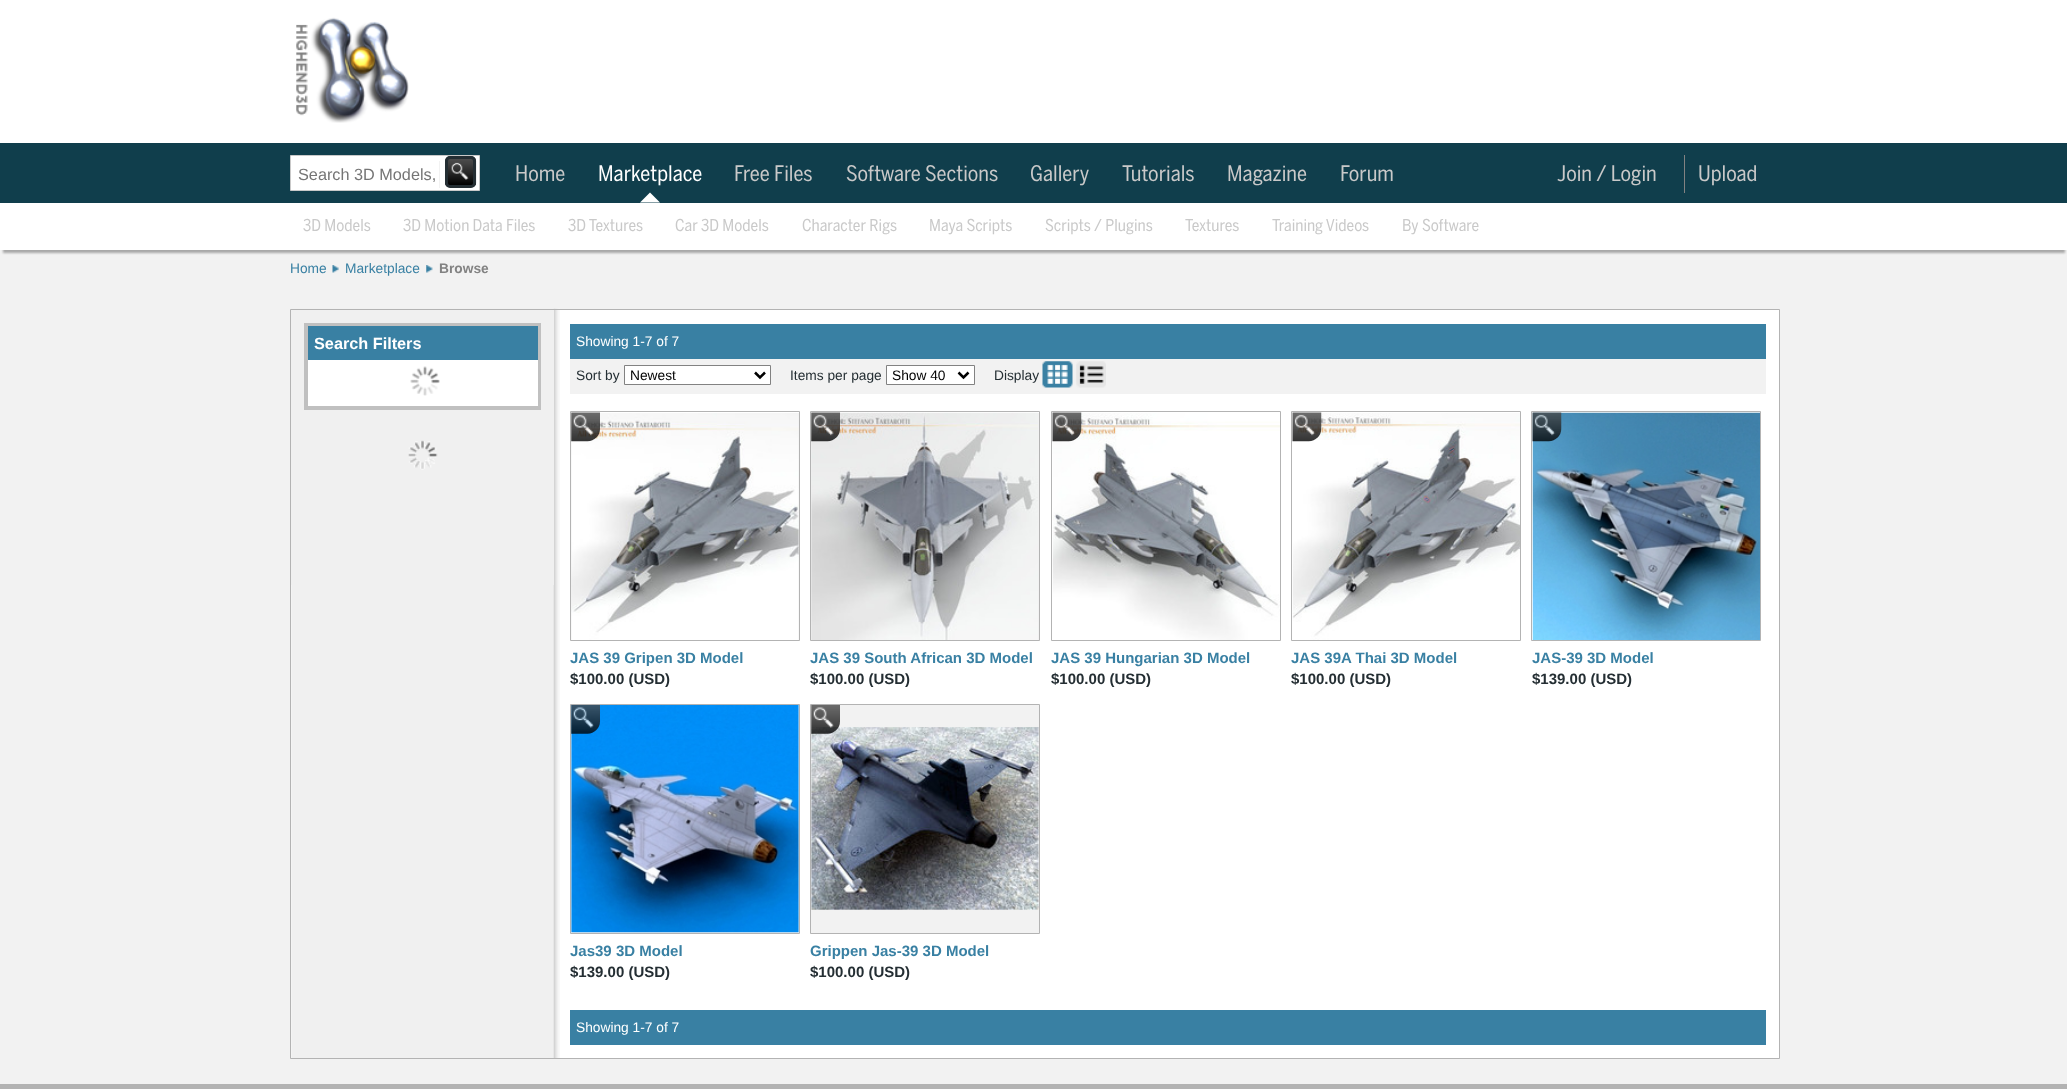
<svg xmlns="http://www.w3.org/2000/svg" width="2067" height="1089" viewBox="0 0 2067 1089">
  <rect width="100%" height="100%" fill="#f2f2f2"/>
  <path d="M0 0h2067v143H0z" fill="#fff"/>
  <image x="296" y="17" width="113" height="106" href="img/1.png"/>
  <path d="M0 143h2067v60H0z" fill="#103e4c"/>
  <path d="M660 202.5H640L650 192.5Z" fill="#fff"/>
  <path d="M1684 155h1v38H1684z" fill="#828282"/>
  <path d="M3 210h2062v43H3z" fill="#0000004d" filter="blur(1px)"/>
  <path d="M0 203h2067v47H0z" fill="#fff"/>
  <path d="M290.5 155.5h189v35H290.5z" fill="#fff" stroke="#c9c9c9"/>
  <path d="M439 161h1v27H439z" fill="#f2f2f2"/>
  <image x="445" y="156" width="32" height="32" href="img/2.png"/>
  <rect x="446.5" y="157.5" width="28" height="29" rx="3.5" fill="none" stroke="#242e33" stroke-width="3"/>
  <image x="332" y="265" width="7" height="8" href="img/3.png"/>
  <image x="426" y="265" width="7" height="8" href="img/4.png"/>
  <path d="M291 310h1488v748H291z" fill="#fff"/>
  <image x="291" y="308" width="269" height="750" href="img/5.png"/>
  <path d="M290.5 309.5h1489v749H290.5z" fill="none" stroke="#b3b3b3"/>
  <path d="M291 310h263v275H291z" fill="#f0f0f0"/>
  <path d="M306 325h233v83H306z" fill="none" stroke="#c0c0c0" stroke-width="4"/>
  <path d="M308 326h230v34H308z" fill="#3980a3"/>
  <path d="M308 360h230v46H308z" fill="#fff"/>
  <image x="410" y="366" width="30" height="30" href="img/6.png"/>
  <image x="408" y="440" width="30" height="30" href="img/7.png"/>
  <path d="M570 324h1196v35H570z" fill="#3980a3"/>
  <path d="M570 359h1196v35H570z" fill="#f2f2f2"/>
  <path d="M624.5 365.5h146v19H624.5z" fill="#fff" stroke="#828282"/>
  <path d="M755 372.5L760 377.5L765 372.5" fill="none" stroke="#000" stroke-width="2.5"/>
  <path d="M886.5 365.5h88v19H886.5z" fill="#fff" stroke="#828282"/>
  <path d="M958.5 372.5L963.5 377.5L968.5 372.5" fill="none" stroke="#000" stroke-width="2.5"/>
  <image x="1042" y="361" width="31" height="27" href="img/8.png"/>
  <image x="1076" y="361" width="30" height="27" href="img/9.png"/>
  <path d="M570.5 411.5h229v229H570.5z" fill="none" stroke="#b3b3b3"/>
  <path d="M571 413h228v227H571z" fill="#f2f2f2"/>
  <image x="571" y="413" width="228" height="227" href="img/11.png"/>
  <image x="571" y="412" width="29" height="30" href="img/10.png"/>
  <path d="M810.5 411.5h229v229H810.5z" fill="none" stroke="#b3b3b3"/>
  <path d="M811 413h228v227H811z" fill="#f2f2f2"/>
  <image x="811" y="412" width="227" height="228" href="img/12.png"/>
  <image x="811" y="412" width="29" height="30" href="img/13.png"/>
  <path d="M1051.5 411.5h229v229H1051.5z" fill="none" stroke="#b3b3b3"/>
  <image x="1052" y="413" width="228" height="227" href="img/15.png"/>
  <image x="1052" y="412" width="30" height="30" href="img/14.png"/>
  <path d="M1291.5 411.5h229v229H1291.5z" fill="none" stroke="#b3b3b3"/>
  <image x="1292" y="413" width="228" height="227" href="img/17.png"/>
  <image x="1292" y="412" width="30" height="30" href="img/16.png"/>
  <path d="M1531.5 411.5h229v229H1531.5z" fill="none" stroke="#b3b3b3"/>
  <image x="1532" y="412" width="228" height="228" href="img/18.png"/>
  <image x="1532" y="412" width="30" height="30" href="img/19.png"/>
  <path d="M570.5 704.5h229v229H570.5z" fill="none" stroke="#b3b3b3"/>
  <path d="M571 705h228v228H571z" fill="#f2f2f2"/>
  <image x="571" y="705" width="228" height="228" href="img/20.png"/>
  <image x="571" y="705" width="29" height="29" href="img/21.png"/>
  <path d="M810.5 704.5h229v229H810.5z" fill="none" stroke="#b3b3b3"/>
  <path d="M811 705h228v228H811z" fill="#f2f2f2"/>
  <image x="811" y="727" width="228" height="183" href="img/22.png"/>
  <image x="811" y="705" width="29" height="29" href="img/23.png"/>
  <path d="M570 1010h1196v35H570z" fill="#3980a3"/>
  <path d="M0 1084h2067v5H0z" fill="#b3b3b3"/>
  <text x="515" y="181" font-family="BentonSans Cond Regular" font-size="21.25" fill="#c9c9c9">Home</text>
  <text x="598" y="181" font-family="BentonSans Cond Regular" font-size="21.25" fill="#fff">Marketplace</text>
  <g font-family="BentonSans Cond Regular" font-size="21.25" fill="#c9c9c9">
    <text x="734" y="181">Free Files</text>
    <text x="846" y="181">Software Sections</text>
    <text x="1030" y="181">Gallery</text>
    <text x="1122" y="181">Tutorials</text>
    <text x="1227" y="181">Magazine</text>
    <text x="1340" y="181">Forum</text>
    <text x="1557" y="181">Join / Login</text>
    <text x="1698" y="181">Upload</text>
  </g>
  <g font-family="BentonSans Cond Regular" font-size="16.25" fill="#c9c9c9">
    <text x="303" y="231">3D Models</text>
    <text x="403" y="231">3D Motion Data Files</text>
    <text x="568" y="231">3D Textures</text>
    <text x="675" y="231">Car 3D Models</text>
    <text x="802" y="231">Character Rigs</text>
    <text x="929" y="231">Maya Scripts</text>
    <text x="1045" y="231">Scripts / Plugins</text>
    <text x="1185" y="231">Textures</text>
    <text x="1272" y="231">Training Videos</text>
    <text x="1402" y="231">By Software</text>
  </g>
  <text x="298" y="180" font-family="Liberation Sans" font-size="16.25" fill="#757575">Search 3D Models,</text>
  <g font-family="Liberation Sans" font-size="13.75" fill="#3980a3">
    <text x="290" y="273">Home</text>
    <text x="345" y="273">Marketplace</text>
  </g>
  <text x="439" y="273" font-family="Liberation Sans" font-size="13.75" font-weight="bold" fill="#828282">Browse</text>
  <text x="314" y="349" font-family="Liberation Sans" font-size="16.25" font-weight="bold" fill="#fff">Search Filters</text>
  <text x="576" y="346" font-family="Liberation Sans" font-size="13.75" fill="#fff">Showing 1-7 of 7</text>
  <text x="576" y="380" font-family="Liberation Sans" font-size="13.75" fill="#242e33">Sort by</text>
  <text x="630" y="380" font-family="Liberation Sans" font-size="13.75" fill="#000">Newest</text>
  <text x="790" y="380" font-family="Liberation Sans" font-size="13.75" fill="#242e33">Items per page</text>
  <text x="892" y="380" font-family="Liberation Sans" font-size="13.75" fill="#000">Show 40</text>
  <text x="994" y="380" font-family="Liberation Sans" font-size="13.75" fill="#242e33">Display</text>
  <text x="570" y="663" font-family="Liberation Sans" font-size="15" font-weight="bold" fill="#3980a3">JAS 39 Gripen 3D Model</text>
  <text x="570" y="684" font-family="Liberation Sans" font-size="15" font-weight="bold" fill="#242e33">$100.00 (USD)</text>
  <text x="810" y="663" font-family="Liberation Sans" font-size="15" font-weight="bold" fill="#3980a3">JAS 39 South African 3D Model</text>
  <text x="810" y="684" font-family="Liberation Sans" font-size="15" font-weight="bold" fill="#242e33">$100.00 (USD)</text>
  <text x="1051" y="663" font-family="Liberation Sans" font-size="15" font-weight="bold" fill="#3980a3">JAS 39 Hungarian 3D Model</text>
  <text x="1051" y="684" font-family="Liberation Sans" font-size="15" font-weight="bold" fill="#242e33">$100.00 (USD)</text>
  <text x="1291" y="663" font-family="Liberation Sans" font-size="15" font-weight="bold" fill="#3980a3">JAS 39A Thai 3D Model</text>
  <text x="1291" y="684" font-family="Liberation Sans" font-size="15" font-weight="bold" fill="#242e33">$100.00 (USD)</text>
  <text x="1532" y="663" font-family="Liberation Sans" font-size="15" font-weight="bold" fill="#3980a3">JAS-39 3D Model</text>
  <text x="1532" y="684" font-family="Liberation Sans" font-size="15" font-weight="bold" fill="#242e33">$139.00 (USD)</text>
  <text x="570" y="956" font-family="Liberation Sans" font-size="15" font-weight="bold" fill="#3980a3">Jas39 3D Model</text>
  <text x="570" y="977" font-family="Liberation Sans" font-size="15" font-weight="bold" fill="#242e33">$139.00 (USD)</text>
  <text x="810" y="956" font-family="Liberation Sans" font-size="15" font-weight="bold" fill="#3980a3">Grippen Jas-39 3D Model</text>
  <text x="810" y="977" font-family="Liberation Sans" font-size="15" font-weight="bold" fill="#242e33">$100.00 (USD)</text>
  <text x="576" y="1032" font-family="Liberation Sans" font-size="13.75" fill="#fff">Showing 1-7 of 7</text>
</svg>
